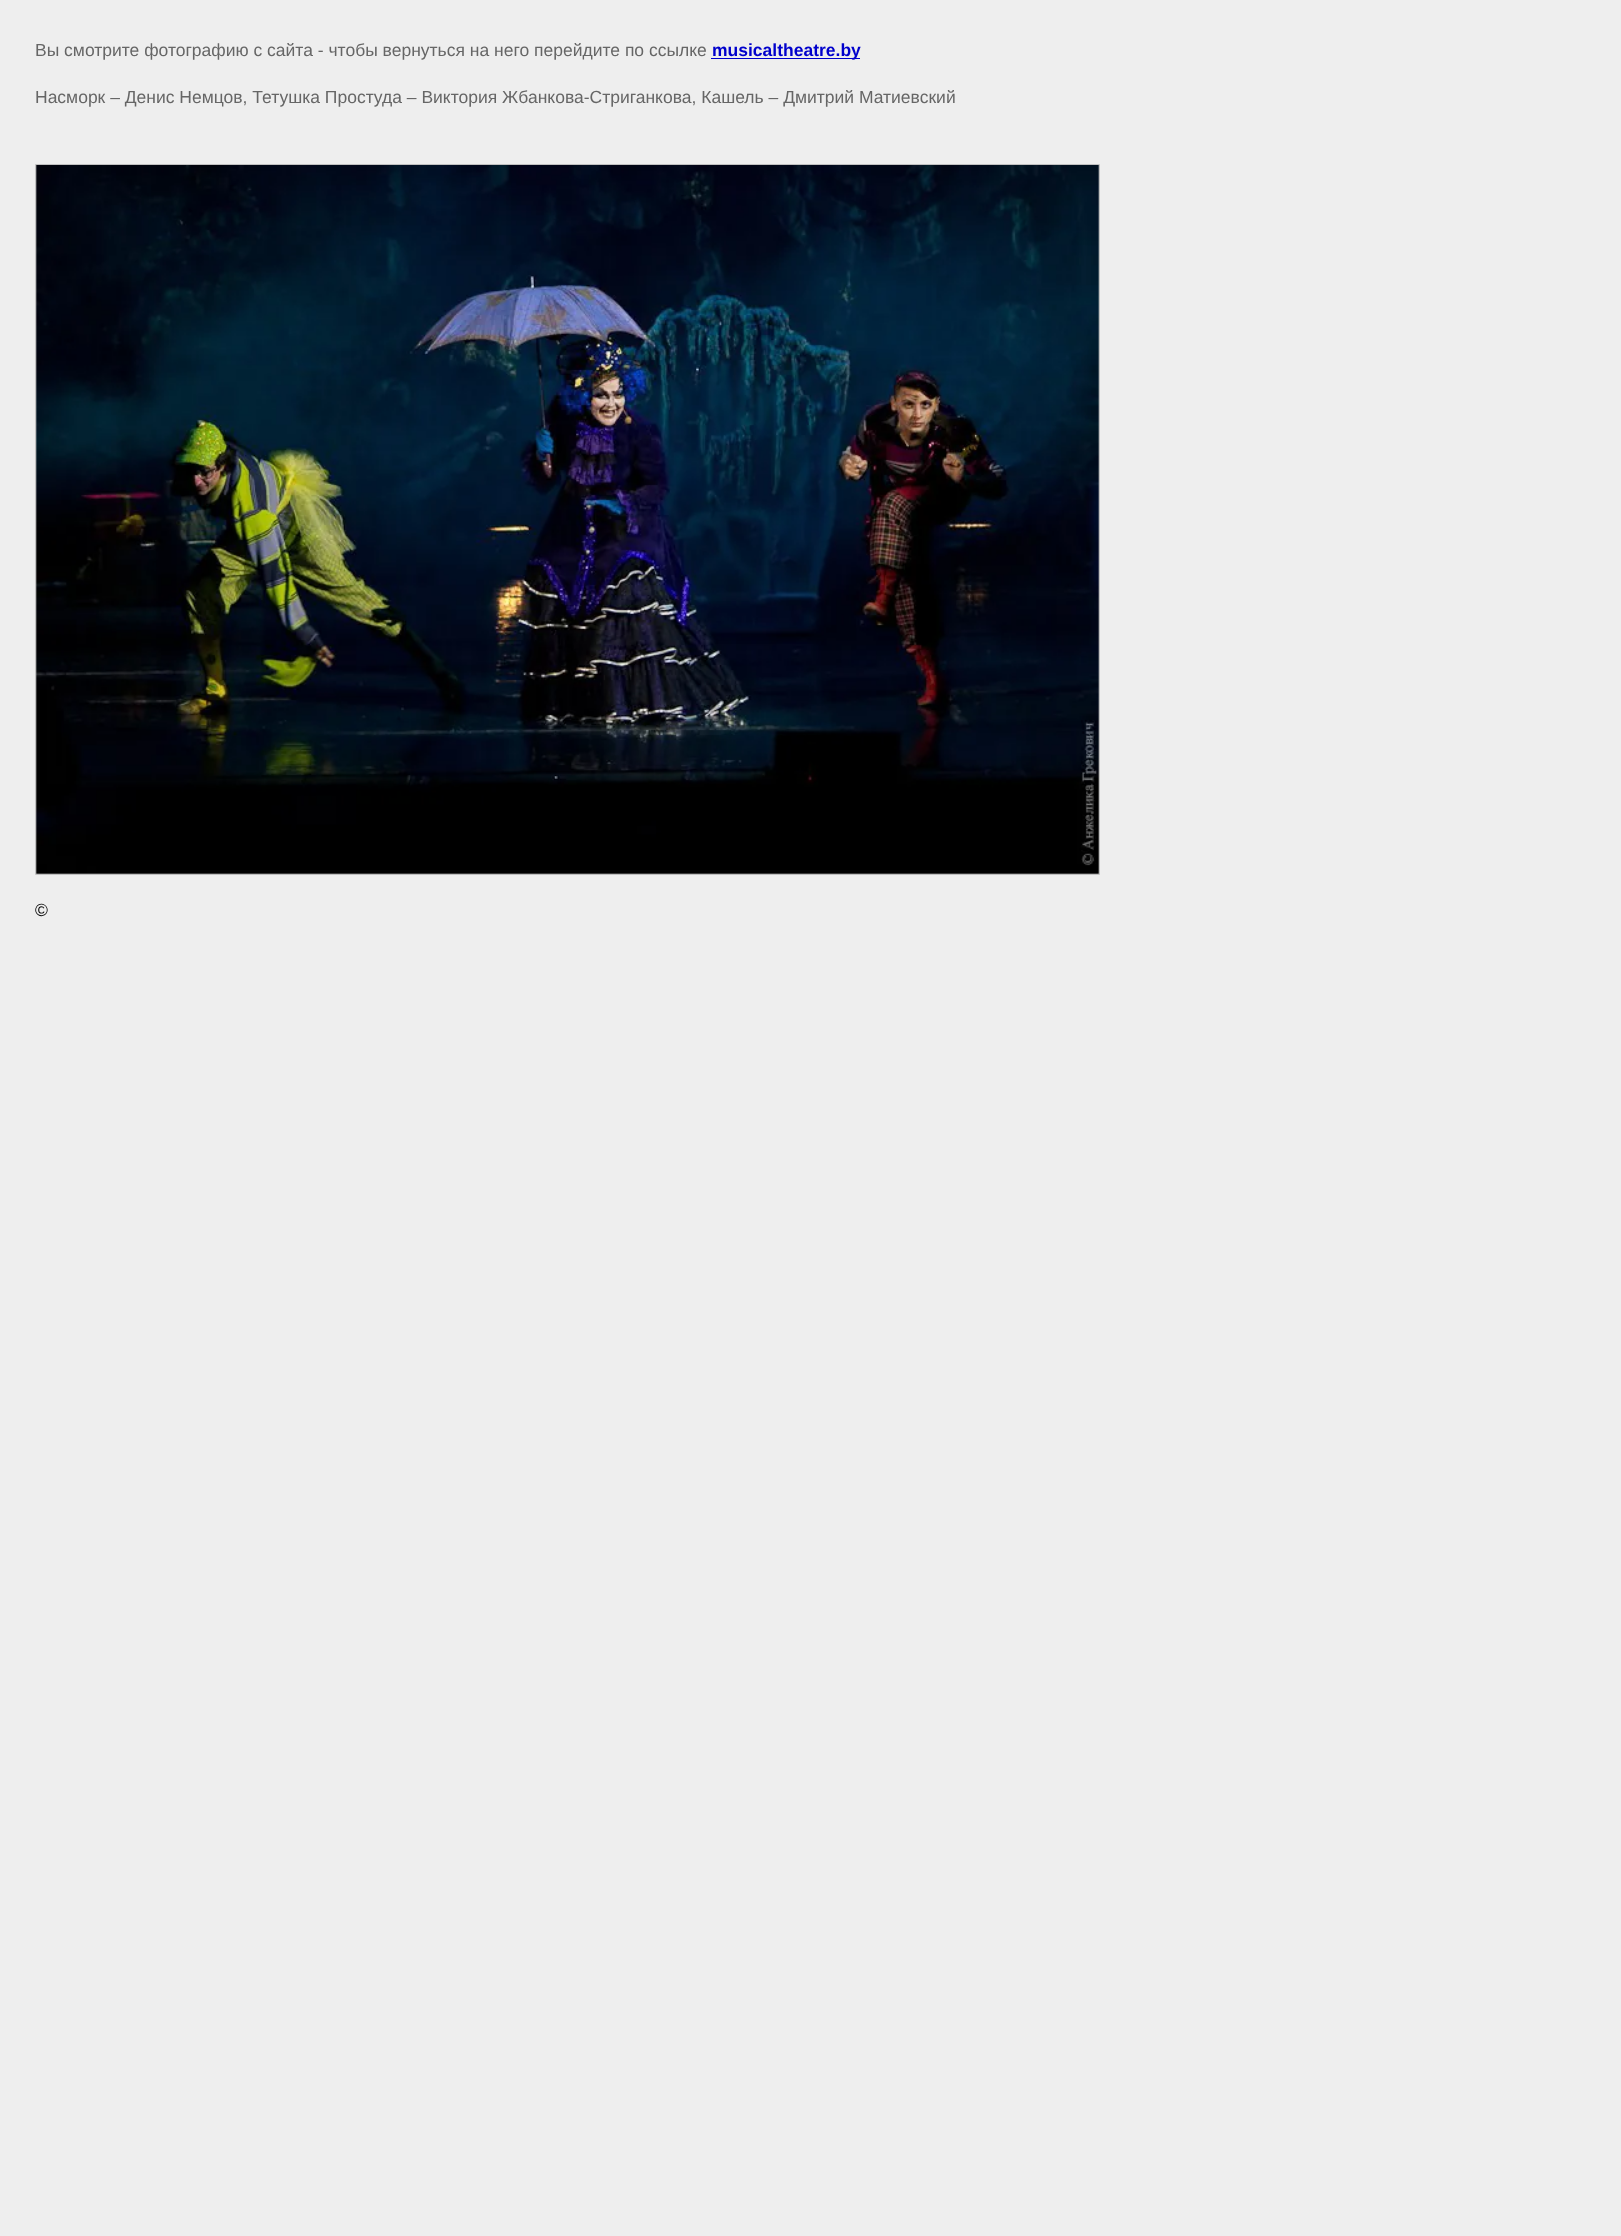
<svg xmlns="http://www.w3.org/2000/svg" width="1621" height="2236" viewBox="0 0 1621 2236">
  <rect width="100%" height="100%" fill="#eee"/>
  <path d="M711 58h149v1H711z" fill="#00c"/>
  <path d="M35.5 164.5h1064v710H35.5z" fill="none" stroke="#c0c0c0"/>
  <image x="36" y="165" width="1063" height="709" href="img/1.png"/>
  <text x="35" y="56" font-family="Liberation Sans" font-size="17.5" fill="#666">Вы смотрите фотографию с сайта - чтобы вернуться на него перейдите по ссылке</text>
  <text x="712" y="56" font-family="Liberation Sans" font-size="17.5" font-weight="bold" fill="#00c">musicaltheatre.by</text>
  <text x="35" y="103" font-family="Liberation Sans" font-size="17.5" fill="#666">Насморк – Денис Немцов, Тетушка Простуда – Виктория Жбанкова-Стриганкова, Кашель – Дмитрий Матиевский</text>
  <text x="35" y="916" font-family="Liberation Sans" font-size="17.5" fill="#000">©</text>
</svg>
